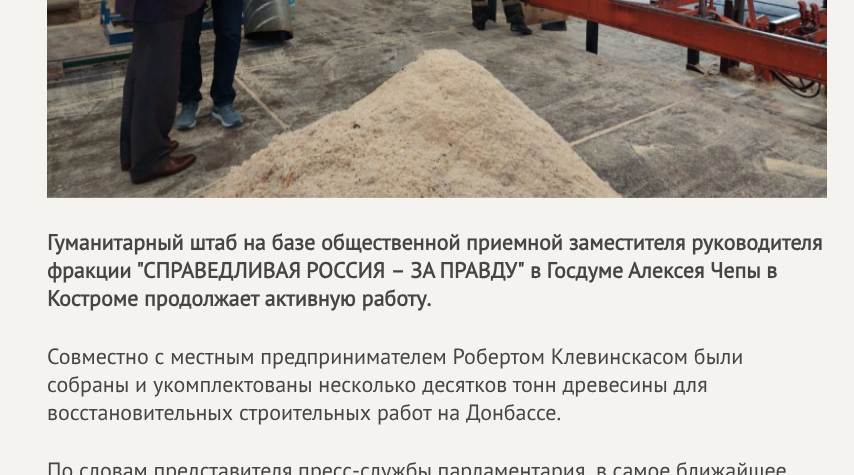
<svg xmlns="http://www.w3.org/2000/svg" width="854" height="475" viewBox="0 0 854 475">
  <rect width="100%" height="100%" fill="#f4f3ef"/>
  <image x="47" y="0" width="780" height="198" href="img/1.png"/>
  <g font-family="PT Sans" font-size="22" font-weight="bold" fill="#464543">
    <text x="47" y="250">Гуманитарный штаб на базе общественной приемной заместителя руководителя</text>
    <text x="47" y="278" word-spacing="-1">фракции "</text>
    <text x="143" y="278" word-spacing="-0.5">СПРАВЕДЛИВАЯ РОССИЯ – ЗА ПРАВДУ</text>
    <text x="517" y="278" word-spacing="-0.25">" в Госдуме Алексея Чепы в</text>
    <text x="47" y="306">Костроме продолжает активную работу.</text>
  </g>
  <g font-family="PT Sans" font-size="22" fill="#464543">
    <text x="47" y="364">Совместно с местным предпринимателем Робертом Клевинскасом были</text>
    <text x="47" y="392">собраны и укомплектованы несколько десятков тонн древесины для</text>
    <text x="47" y="420" word-spacing="0.5">восстановительных строительных работ на Донбассе.</text>
    <text x="47" y="478" word-spacing="-0.25">По словам представителя пресс-службы парламентария, в самое ближайшее</text>
  </g>
</svg>
